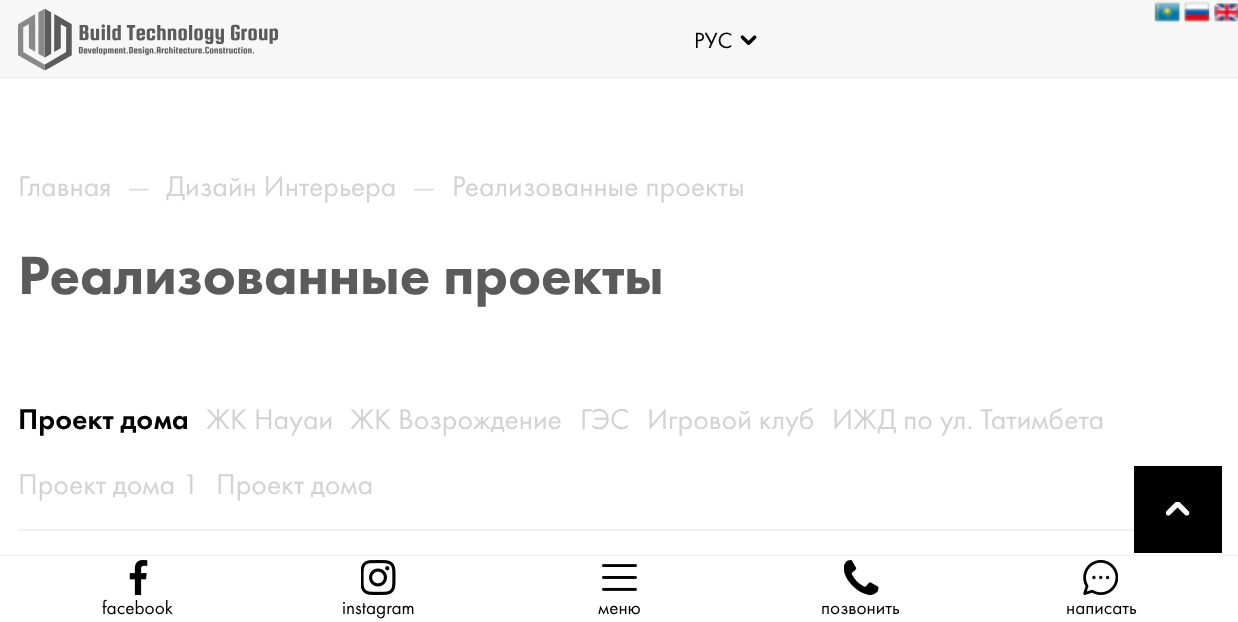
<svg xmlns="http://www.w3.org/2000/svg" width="1238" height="622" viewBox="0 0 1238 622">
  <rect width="100%" height="100%" fill="#fff"/>
  <path d="M0 0h1238v77H0z" fill="#f7f7f7"/>
  <path d="M0 77h1238v2H0z" fill="#eef1f5"/>
  <image x="18" y="9" width="261" height="61" href="img/1.png"/>
  <image x="740" y="35" width="17" height="10" href="img/2.png"/>
  <image x="1154" y="1" width="27" height="22" href="img/3.png"/>
  <image x="1184" y="1" width="26" height="22" href="img/4.png"/>
  <image x="1214" y="3" width="24" height="19" href="img/5.png"/>
  <path d="M18 529h1116v2H18z" fill="#eef1f5"/>
  <path d="M1134 466h88v87H1134z" fill="#000"/>
  <image x="1166" y="502" width="24" height="14" href="img/6.png"/>
  <path d="M0 555h1238v1H0z" fill="#eef1f5"/>
  <image x="129" y="560" width="19" height="35" href="img/7.png"/>
  <image x="361" y="560" width="35" height="35" href="img/8.png"/>
  <image x="602" y="564" width="35" height="27" href="img/9.png"/>
  <image x="844" y="560" width="35" height="35" href="img/10.png"/>
  <image x="1083" y="560" width="35" height="35" href="img/11.png"/>
  <text x="694" y="48" font-family="Futura PT" font-size="23" fill="#000">РУС</text>
  <text x="18" y="196" font-family="Futura PT" font-size="29.75" fill="#d2d2d2">Главная</text>
  <text x="127" y="196" font-family="Futura PT" font-size="29.75" fill="#e0e0e0">—</text>
  <text x="166" y="196" font-family="Futura PT" font-size="29.75" fill="#d2d2d2">Дизайн Интерьера</text>
  <text x="412" y="196" font-family="Futura PT" font-size="29.75" fill="#e0e0e0">—</text>
  <text x="452" y="196" font-family="Futura PT" font-size="29.75" fill="#d2d2d2">Реализованные проекты</text>
  <text x="18" y="294" font-family="Futura PT" font-size="56" font-weight="900" fill="#5b5b5b">Реализованные проекты</text>
  <text x="18" y="429" font-family="Futura PT" font-size="29.75" font-weight="500" fill="#000">Проект дома</text>
  <g font-family="Futura PT" font-size="29.75" fill="#d2d2d2">
    <text x="206" y="429">ЖК Науаи</text>
    <text x="350" y="429">ЖК Возрождение</text>
    <text x="580" y="429">ГЭС</text>
    <text x="647" y="429">Игровой клуб</text>
    <text x="832" y="429">ИЖД по ул. Татимбета</text>
    <text x="18" y="494">Проект дома 1</text>
    <text x="216" y="494">Проект дома</text>
  </g>
  <g font-family="Futura PT" font-size="19.25" fill="#000">
    <text x="102" y="614">facebook</text>
    <text x="342" y="614">instagram</text>
    <text x="598" y="614">меню</text>
    <text x="821" y="614">позвонить</text>
    <text x="1066" y="614">написать</text>
  </g>
</svg>
